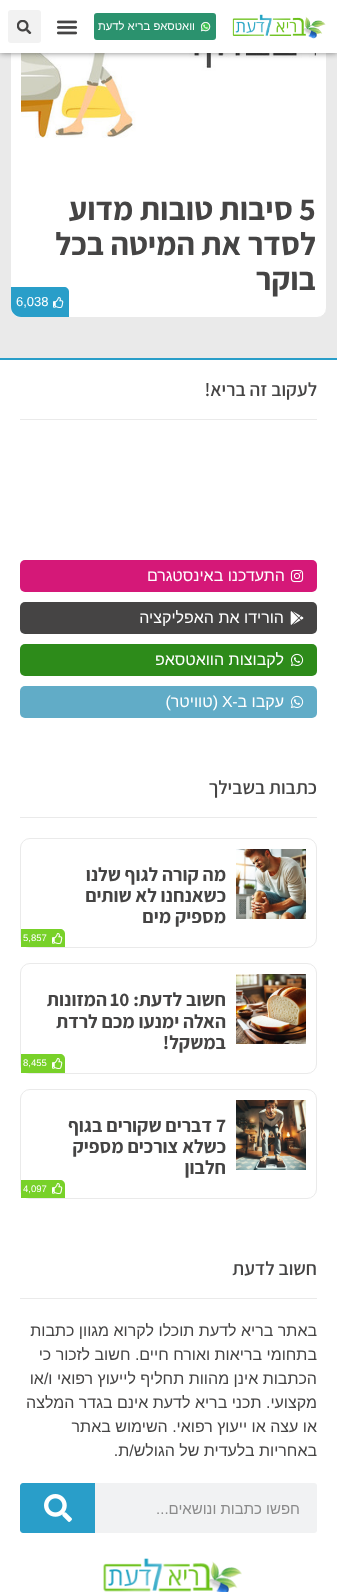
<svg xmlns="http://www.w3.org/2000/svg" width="337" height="1592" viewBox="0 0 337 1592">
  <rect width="100%" height="100%" fill="#eaeaea"/>
  <rect x="10.5" y="-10.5" width="316" height="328" rx="9.5" fill="#fff" stroke="#eaeaea"/>
  <image x="21" y="53" width="295" height="85" href="img/5.png"/>
  <path d="M0 0h337v53H0z" fill="#00000080" filter="blur(3px)"/>
  <path d="M0 0h337v53H0z" fill="#fff"/>
  <image x="232" y="14" width="94" height="25" href="img/1.png"/>
  <rect x="94" y="13" width="122" height="27" rx="3" fill="#2b926e"/>
  <image x="200" y="21" width="11" height="11" href="img/2.png"/>
  <image x="56" y="20" width="22" height="15" href="img/3.png"/>
  <rect x="8" y="10" width="33" height="33" rx="3" fill="#f2f2f2"/>
  <image x="17" y="20" width="15" height="14" href="img/4.png"/>
  <path d="M11 287H64C67 287 69 289 69 292V317H21C15.5 317 11 312.5 11 307Z" fill="#299ec9"/>
  <image x="53" y="297" width="11" height="11" href="img/6.png"/>
  <path d="M0 360h337v1232H0z" fill="#fff"/>
  <path d="M0 358h337v2H0z" fill="#299ec9"/>
  <path d="M20 419h297v1H20z" fill="#eaeaea"/>
  <rect x="20" y="560" width="297" height="32" rx="5" fill="#d51878"/>
  <image x="290" y="569" width="14" height="14" href="img/7.png"/>
  <rect x="20" y="602" width="297" height="32" rx="5" fill="#454444"/>
  <image x="290" y="611" width="14" height="14" href="img/8.png"/>
  <rect x="20" y="644" width="297" height="32" rx="5" fill="#2d8b1a"/>
  <image x="290" y="653" width="14" height="13" href="img/9.png"/>
  <rect x="20" y="686" width="297" height="32" rx="5" fill="#61acc7"/>
  <image x="290" y="695" width="14" height="13" href="img/10.png"/>
  <path d="M20 817h297v1H20z" fill="#eaeaea"/>
  <rect x="20.5" y="838.5" width="296" height="109" rx="9.5" fill="none" stroke="#eaeaea"/>
  <image x="236" y="849" width="70" height="70" href="img/11.png"/>
  <path d="M21 929H60C63 929 65 931 65 934V947H21Z" fill="#78d129"/>
  <image x="52" y="933" width="11" height="11" href="img/12.png"/>
  <rect x="20.5" y="963.5" width="296" height="110" rx="9.5" fill="none" stroke="#eaeaea"/>
  <image x="236" y="974" width="70" height="70" href="img/13.png"/>
  <path d="M21 1054H60C63 1054 65 1056 65 1059V1073H21Z" fill="#78d129"/>
  <image x="52" y="1058" width="11" height="11" href="img/12.png"/>
  <rect x="20.5" y="1089.5" width="296" height="109" rx="9.5" fill="none" stroke="#eaeaea"/>
  <image x="236" y="1100" width="70" height="70" href="img/14.png"/>
  <path d="M21 1180H60C63 1180 65 1182 65 1185V1198H21Z" fill="#78d129"/>
  <image x="52" y="1183" width="11" height="11" href="img/12.png"/>
  <path d="M20 1298h297v1H20z" fill="#eaeaea"/>
  <rect x="20" y="1483" width="297" height="50" rx="3" fill="#f1f2f3"/>
  <path d="M23 1483H95V1533H23C21.5 1533 20 1531.5 20 1530V1486C20 1484.5 21.5 1483 23 1483Z" fill="#299ec9"/>
  <image x="44" y="1494" width="28" height="28" href="img/15.png"/>
  <image x="103" y="1558" width="139" height="34" href="img/16.png"/>
  <text x="195" y="30" font-family="Liberation Sans" font-size="11.25" direction="rtl" fill="#fff">וואטסאפ בריא לדעת</text>
  <text x="299" y="220" font-family="Assistant" font-size="32" font-weight="bold" fill="#454444">5</text>
  <g font-family="Assistant" font-size="32" font-weight="bold" direction="rtl" fill="#454444">
    <text x="293" y="220">סיבות טובות מדוע</text>
    <text x="316" y="255">לסדר את המיטה בכל</text>
    <text x="316" y="290">בוקר</text>
  </g>
  <text x="16" y="306" font-family="Liberation Sans" font-size="13" fill="#fff">6,038</text>
  <text x="317" y="396" font-family="Assistant" font-size="19.25" font-weight="600" direction="rtl" fill="#454444">לעקוב זה בריא!</text>
  <g font-family="Liberation Sans" font-size="16" direction="rtl" fill="#fff">
    <text x="285" y="581">התעדכנו באינסטגרם</text>
    <text x="284" y="623">הורידו את האפליקציה</text>
    <text x="284" y="665">לקבוצות הוואטסאפ</text>
    <text x="284" y="707">עקבו ב-</text>
  </g>
  <text x="222" y="707" font-family="Liberation Sans" font-size="16" fill="#fff">X</text>
  <text x="218" y="707" font-family="Liberation Sans" font-size="16" direction="rtl" fill="#fff">(טוויטר)</text>
  <text x="317" y="794" font-family="Assistant" font-size="19.25" font-weight="600" direction="rtl" fill="#454444">כתבות בשבילך</text>
  <g font-family="Assistant" font-size="19.25" font-weight="bold" direction="rtl" fill="#454444">
    <text x="226" y="881">מה קורה לגוף שלנו</text>
    <text x="226" y="902">כשאנחנו לא שותים</text>
    <text x="226" y="923">מספיק מים</text>
  </g>
  <text x="23" y="941" font-family="Liberation Sans" font-size="9.5" fill="#fff">5,857</text>
  <text x="226" y="1006" font-family="Assistant" font-size="19.25" font-weight="bold" direction="rtl" fill="#454444">חשוב לדעת:</text>
  <text x="110" y="1006" font-family="Assistant" font-size="19.25" font-weight="bold" fill="#454444">10</text>
  <g font-family="Assistant" font-size="19.25" font-weight="bold" direction="rtl" fill="#454444">
    <text x="107" y="1006">המזונות</text>
    <text x="226" y="1028">האלה ימנעו מכם לרדת</text>
    <text x="226" y="1049">במשקל!</text>
  </g>
  <text x="23" y="1066" font-family="Liberation Sans" font-size="9.5" fill="#fff">8,455</text>
  <text x="216" y="1132" font-family="Assistant" font-size="19.25" font-weight="bold" fill="#454444">7</text>
  <g font-family="Assistant" font-size="19.25" font-weight="bold" direction="rtl" fill="#454444">
    <text x="212" y="1132">דברים שקורים בגוף</text>
    <text x="226" y="1153">כשלא צורכים מספיק</text>
    <text x="226" y="1174">חלבון</text>
  </g>
  <text x="23" y="1192" font-family="Liberation Sans" font-size="9.5" fill="#fff">4,097</text>
  <text x="317" y="1275" font-family="Assistant" font-size="19.25" font-weight="600" direction="rtl" fill="#454444">חשוב לדעת</text>
  <g font-family="Liberation Sans" font-size="16" direction="rtl" fill="#454444">
    <text x="317" y="1336">באתר בריא לדעת תוכלו לקרוא מגוון כתבות</text>
    <text x="317" y="1360">בתחומי בריאות ואורח חיים. חשוב לזכור כי</text>
    <text x="317" y="1384">הכתבות אינן מהוות תחליף לייעוץ רפואי ו/או</text>
    <text x="317" y="1408">מקצועי. תכני בריא לדעת אינם בגדר המלצה</text>
    <text x="317" y="1432">או עצה או ייעוץ רפואי. השימוש באתר</text>
    <text x="317" y="1456">באחריות בלעדית של הגולש/ת.</text>
  </g>
  <text x="300" y="1514" font-family="Liberation Sans" font-size="15" direction="rtl" fill="#8a8a8a">חפשו כתבות ונושאים...</text>
</svg>
